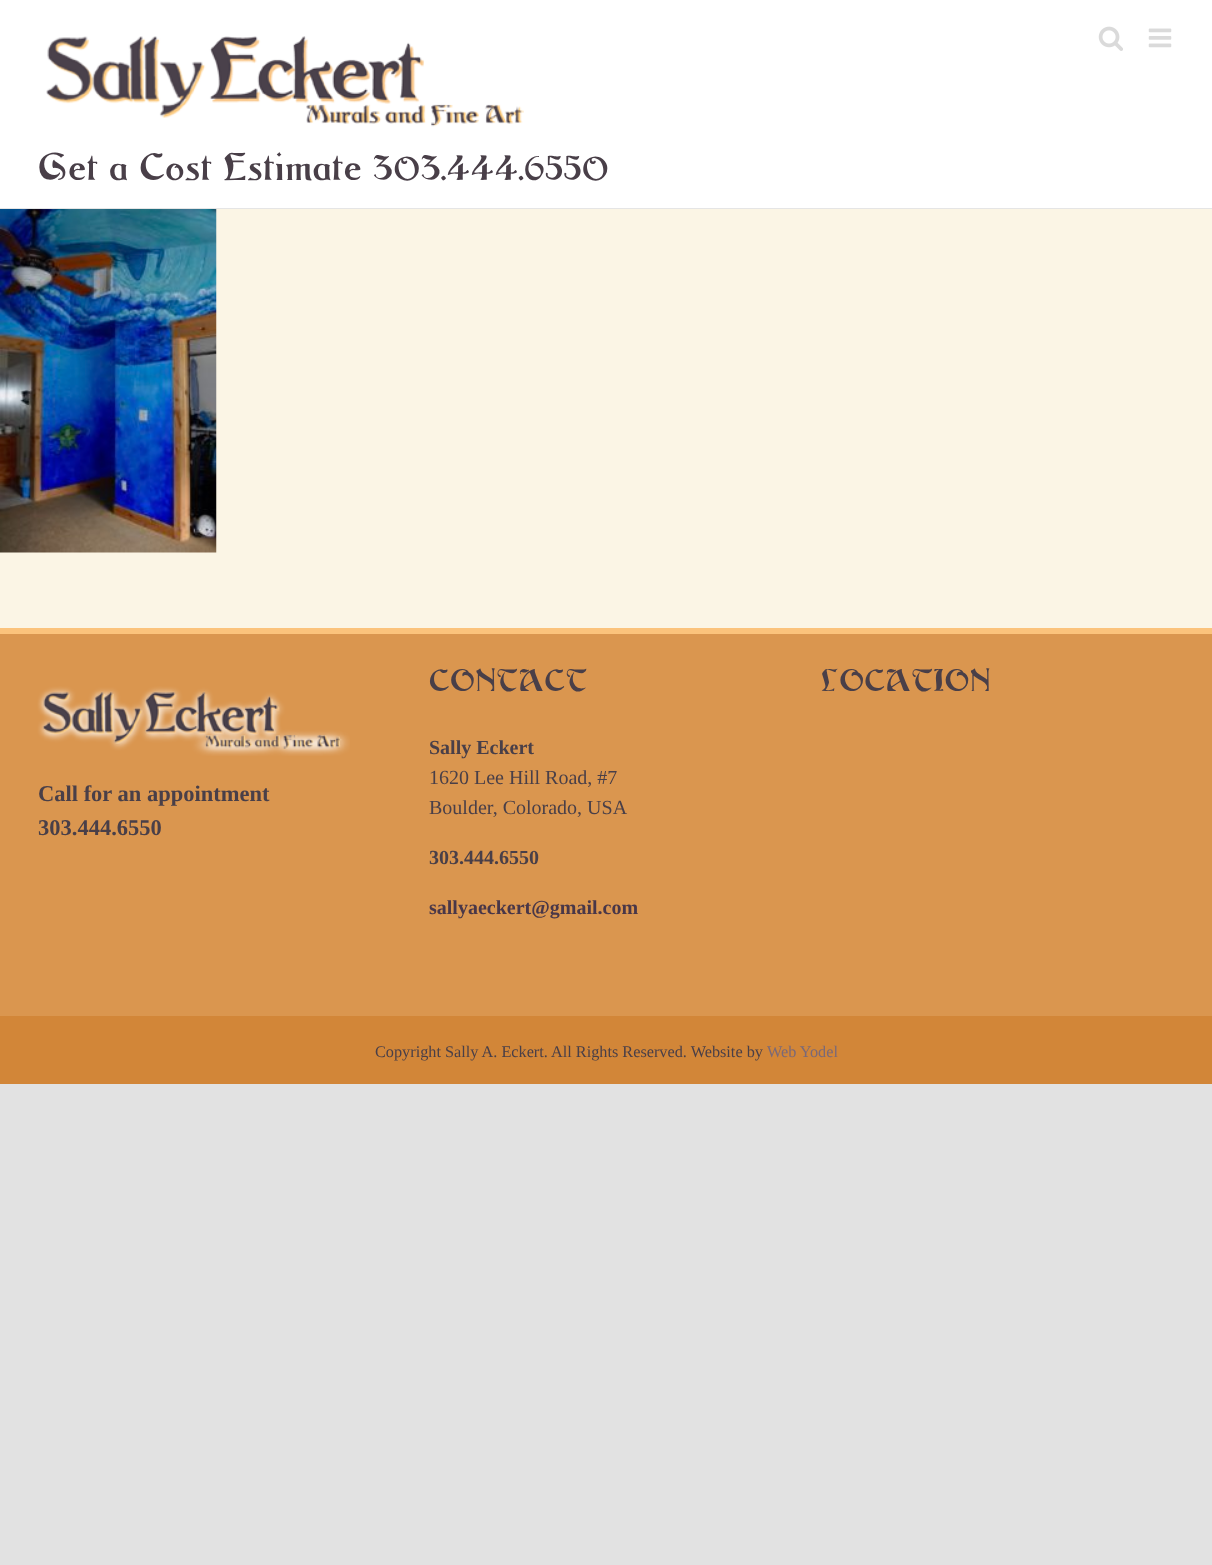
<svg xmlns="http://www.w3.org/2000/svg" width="1212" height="1565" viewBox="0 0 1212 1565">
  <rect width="100%" height="100%" fill="#e2e2e2"/>
  <path d="M0 0h1212v208H0z" fill="#fff"/>
  <path d="M0 208h1212v1H0z" fill="#e5e5e5"/>
  <image x="1098" y="26" width="25" height="25" href="img/1.png"/>
  <image x="1148" y="28" width="24" height="20" href="img/2.png"/>
  <image x="46" y="36" width="478" height="91" href="img/3.png"/>
  <path d="M0 209h1212v419H0z" fill="#fbf5e5"/>
  <image x="0" y="209" width="217" height="344" href="img/4.png"/>
  <path d="M0 634h1212v382H0z" fill="#da964f"/>
  <path d="M0 628h1212v6H0z" fill="#fbc37c"/>
  <image x="37" y="686" width="313" height="70" href="img/5.png"/>
  <path d="M0 1016h1212v68H0z" fill="#d28638"/>
  <text x="38" y="180" font-family="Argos" font-size="37.25" fill="#493f48">Get a Cost Estimate 303.444.6550</text>
  <text x="429" y="691" font-family="Argos" font-size="30" fill="#493f48">CONTACT</text>
  <text x="429" y="754" font-family="Liberation Serif" font-size="20" font-weight="bold" fill="#493f48">Sally Eckert</text>
  <g font-family="Liberation Serif" font-size="20" fill="#493f48">
    <text x="429" y="784">1620 Lee Hill Road, #7</text>
    <text x="429" y="814">Boulder, Colorado, USA</text>
  </g>
  <text x="429" y="864" font-family="Liberation Serif" font-size="20" font-weight="bold" fill="#493f48">303.444.6550</text>
  <text x="429" y="914" font-family="Liberation Serif" font-size="20" font-weight="bold" fill="#493748">sallyaeckert@gmail.com</text>
  <text x="821" y="691" font-family="Argos" font-size="30" fill="#493f48">LOCATION</text>
  <g font-family="Liberation Serif" font-size="22.5" font-weight="bold" fill="#493f48">
    <text x="38" y="801">Call for an appointment</text>
    <text x="38" y="835">303.444.6550</text>
  </g>
  <text x="375" y="1057" font-family="Liberation Serif" font-size="16.25" fill="#493f48">Copyright Sally A. Eckert. All Rights Reserved. Website by</text>
  <text x="767" y="1057" font-family="Liberation Serif" font-size="16.25" fill="#7a6978">Web Yodel</text>
</svg>
